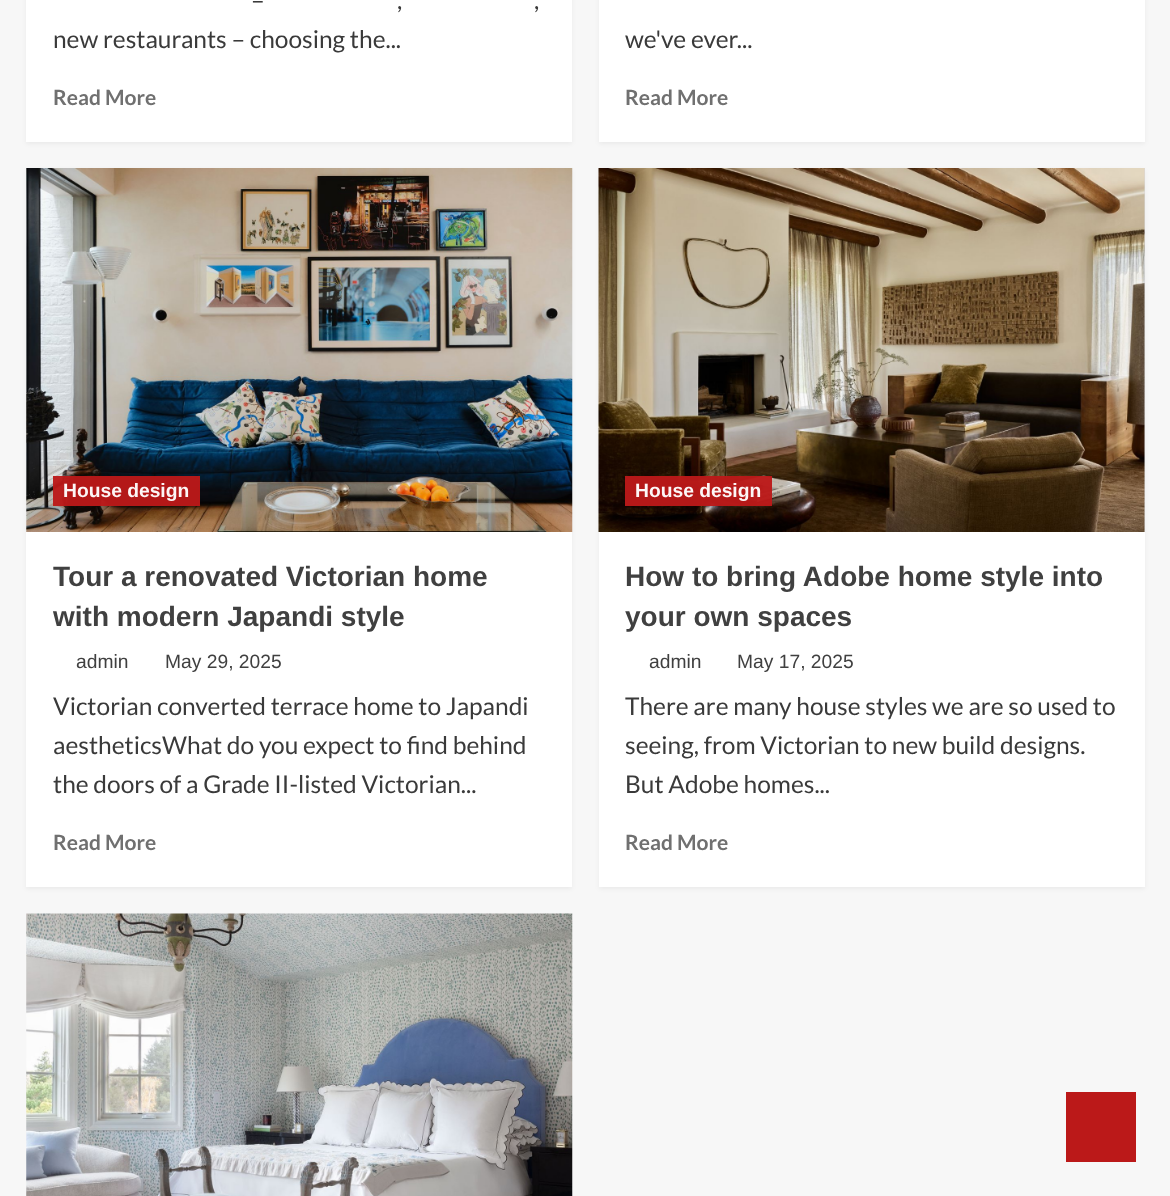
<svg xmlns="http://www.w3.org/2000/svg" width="1170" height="1196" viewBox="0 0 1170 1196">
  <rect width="100%" height="100%" fill="#f7f7f7"/>
  <path d="M26 -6h546v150H26z" fill="#0000000d" filter="blur(2px)"/>
  <path d="M26 0h546v142H26z" fill="#fff"/>
  <path d="M599 -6h546v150H599z" fill="#0000000d" filter="blur(2px)"/>
  <path d="M599 0h546v142H599z" fill="#fff"/>
  <path d="M26 170h546v719H26z" fill="#0000000d" filter="blur(2px)"/>
  <path d="M26 168h546v719H26z" fill="#fff"/>
  <image x="26" y="168" width="547" height="364" href="img/1.png"/>
  <path d="M53 476h147v30H53z" fill="#bb1919f5"/>
  <path d="M599 170h546v719H599z" fill="#0000000d" filter="blur(2px)"/>
  <path d="M599 532h546v355H599z" fill="#fff"/>
  <path d="M1144 168h1v364H1144z" fill="#d8d8d8"/>
  <image x="598" y="168" width="547" height="364" href="img/2.png"/>
  <path d="M625 476h147v30H625z" fill="#bb1919f5"/>
  <image x="26" y="913" width="547" height="283" href="img/3.png"/>
  <path d="M1066 1092h70v70H1066z" fill="#bb1919"/>
  <g font-family="Lato" font-size="24.5" fill="#3a3a3a">
    <text x="251" y="9">–</text>
    <text x="397" y="9">,</text>
    <text x="534" y="9">,</text>
    <text x="53" y="48">new restaurants – choosing the...</text>
  </g>
  <text x="53" y="105" font-family="Lato" font-size="21" font-weight="bold" fill="#707070">Read More</text>
  <text x="625" y="48" font-family="Lato" font-size="24.5" fill="#3a3a3a">we've ever...</text>
  <text x="625" y="105" font-family="Lato" font-size="21" font-weight="bold" fill="#707070">Read More</text>
  <text x="63" y="497" font-family="Liberation Sans" font-size="19.25" font-weight="bold" fill="#fcf6f6">House design</text>
  <g font-family="Liberation Sans" font-size="28" font-weight="bold" fill="#404040">
    <text x="53" y="586">Tour a renovated Victorian home</text>
    <text x="53" y="626">with modern Japandi style</text>
  </g>
  <g font-family="Liberation Sans" font-size="19.25" fill="#404040">
    <text x="76" y="668">admin</text>
    <text x="165" y="668">May 29, 2025</text>
  </g>
  <g font-family="Lato" font-size="24.5" fill="#3a3a3a">
    <text x="53" y="715">Victorian converted terrace home to Japandi</text>
    <text x="53" y="754">aestheticsWhat do you expect to find behind</text>
    <text x="53" y="793">the doors of a Grade II-listed Victorian...</text>
  </g>
  <text x="53" y="850" font-family="Lato" font-size="21" font-weight="bold" fill="#707070">Read More</text>
  <text x="635" y="497" font-family="Liberation Sans" font-size="19.25" font-weight="bold" fill="#fcf6f6">House design</text>
  <g font-family="Liberation Sans" font-size="28" font-weight="bold" fill="#404040">
    <text x="625" y="586">How to bring Adobe home style into</text>
    <text x="625" y="626">your own spaces</text>
  </g>
  <g font-family="Liberation Sans" font-size="19.25" fill="#404040">
    <text x="649" y="668">admin</text>
    <text x="737" y="668">May 17, 2025</text>
  </g>
  <g font-family="Lato" font-size="24.5" fill="#3a3a3a">
    <text x="625" y="715">There are many house styles we are so used to</text>
    <text x="625" y="754">seeing, from Victorian to new build designs.</text>
    <text x="625" y="793">But Adobe homes...</text>
  </g>
  <text x="625" y="850" font-family="Lato" font-size="21" font-weight="bold" fill="#707070">Read More</text>
</svg>
